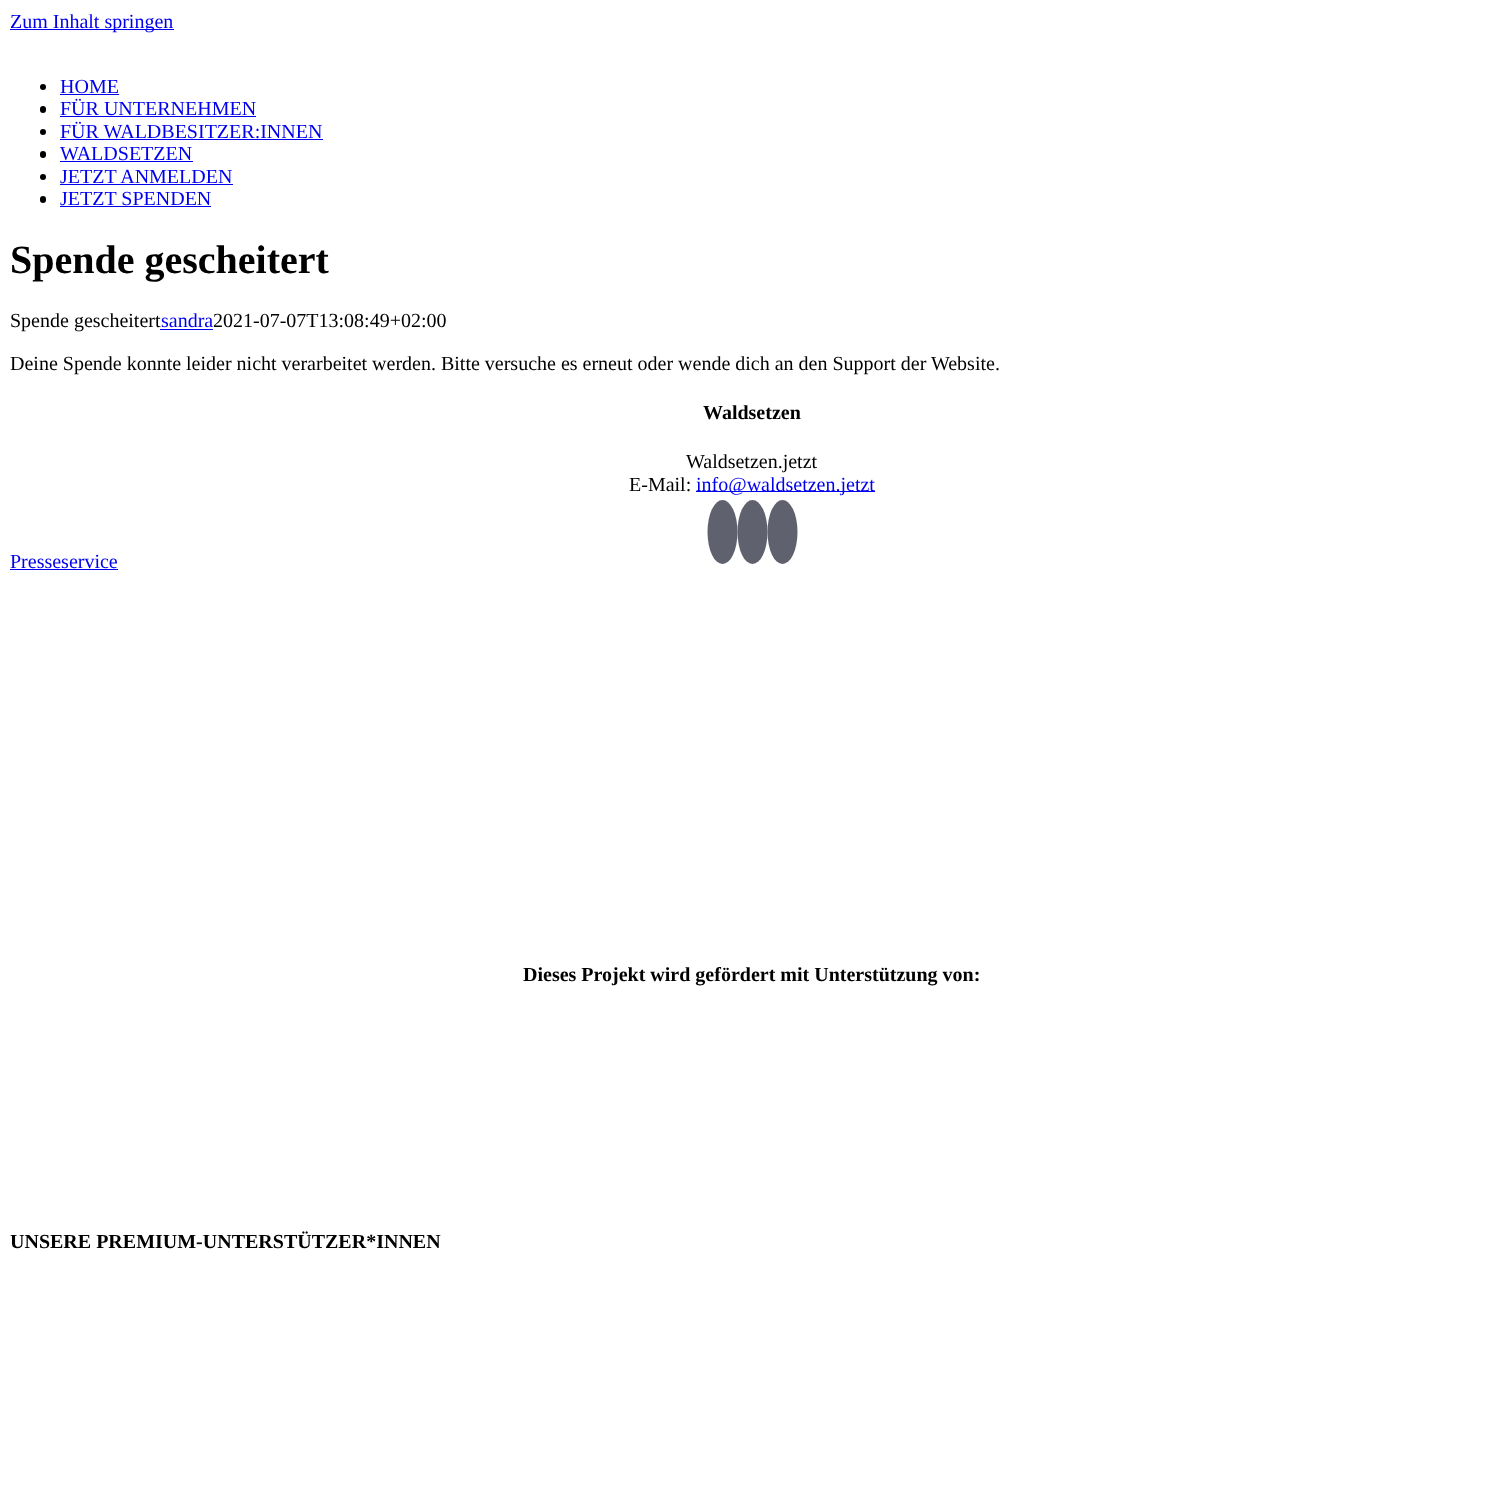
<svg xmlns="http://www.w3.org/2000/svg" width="1503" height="1501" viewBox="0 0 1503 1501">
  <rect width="100%" height="100%" fill="#fff"/>
  <path d="M10 29h164v1H10z" fill="#00e"/>
  <circle cx="43" cy="87" r="3" fill="#000"/>
  <path d="M60 94h59v1H60z" fill="#00e"/>
  <rect x="40" y="106" width="6" height="7" rx="3" fill="#000"/>
  <path d="M60 116h196v1H60z" fill="#00e"/>
  <circle cx="43" cy="132" r="3" fill="#000"/>
  <path d="M60 139h263v1H60z" fill="#00e"/>
  <rect x="40" y="151" width="6" height="7" rx="3" fill="#000"/>
  <path d="M60 161h133v1H60z" fill="#00e"/>
  <circle cx="43" cy="177" r="3" fill="#000"/>
  <path d="M60 184h173v1H60z" fill="#00e"/>
  <rect x="40" y="196" width="6" height="7" rx="3" fill="#000"/>
  <path d="M60 206h151v1H60z" fill="#00e"/>
  <path d="M696 491h179v1H696z" fill="#00e"/>
  <path d="M10 569h108v1H10z" fill="#00e"/>
  <ellipse cx="722.5" cy="532" rx="15" ry="32" fill="#5f616f"/>
  <ellipse cx="752.5" cy="532" rx="15" ry="32" fill="#5f616f"/>
  <ellipse cx="782.5" cy="532" rx="15" ry="32" fill="#5f616f"/>
  <g font-family="Liberation Serif" font-size="20" fill="#00e">
    <text x="10" y="28">Zum Inhalt springen</text>
    <text x="60" y="93">HOME</text>
    <text x="60" y="115">FÜR UNTERNEHMEN</text>
    <text x="60" y="138">FÜR WALDBESITZER:INNEN</text>
    <text x="60" y="160">WALDSETZEN</text>
    <text x="60" y="183">JETZT ANMELDEN</text>
    <text x="60" y="205">JETZT SPENDEN</text>
  </g>
  <text x="10" y="273" font-family="Liberation Serif" font-size="40" font-weight="bold" fill="#000">Spende gescheitert</text>
  <text x="10" y="327" font-family="Liberation Serif" font-size="20" fill="#000">Spende gescheitert</text>
  <text x="161" y="327" font-family="Liberation Serif" font-size="20" fill="#00e">sandra</text>
  <path d="M160 329h53v1H160z" fill="#00e"/>
  <g font-family="Liberation Serif" font-size="20" fill="#000">
    <text x="213" y="327">2021-07-07T13:08:49+02:00</text>
    <text x="10" y="370">Deine Spende konnte leider nicht verarbeitet werden. Bitte versuche es erneut oder wende dich an den Support der Website.</text>
  </g>
  <text x="703" y="419" font-family="Liberation Serif" font-size="20" font-weight="bold" fill="#000">Waldsetzen</text>
  <g font-family="Liberation Serif" font-size="20" fill="#000">
    <text x="686" y="468">Waldsetzen.jetzt</text>
    <text x="629" y="491">E-Mail:</text>
  </g>
  <g font-family="Liberation Serif" font-size="20" fill="#00e">
    <text x="696" y="491">info@waldsetzen.jetzt</text>
    <text x="10" y="568">Presseservice</text>
  </g>
  <g font-family="Liberation Serif" font-size="20" font-weight="bold" fill="#000">
    <text x="523" y="981">Dieses Projekt wird gefördert mit Unterstützung von:</text>
    <text x="10" y="1248">UNSERE PREMIUM-UNTERSTÜTZER*INNEN</text>
  </g>
</svg>
